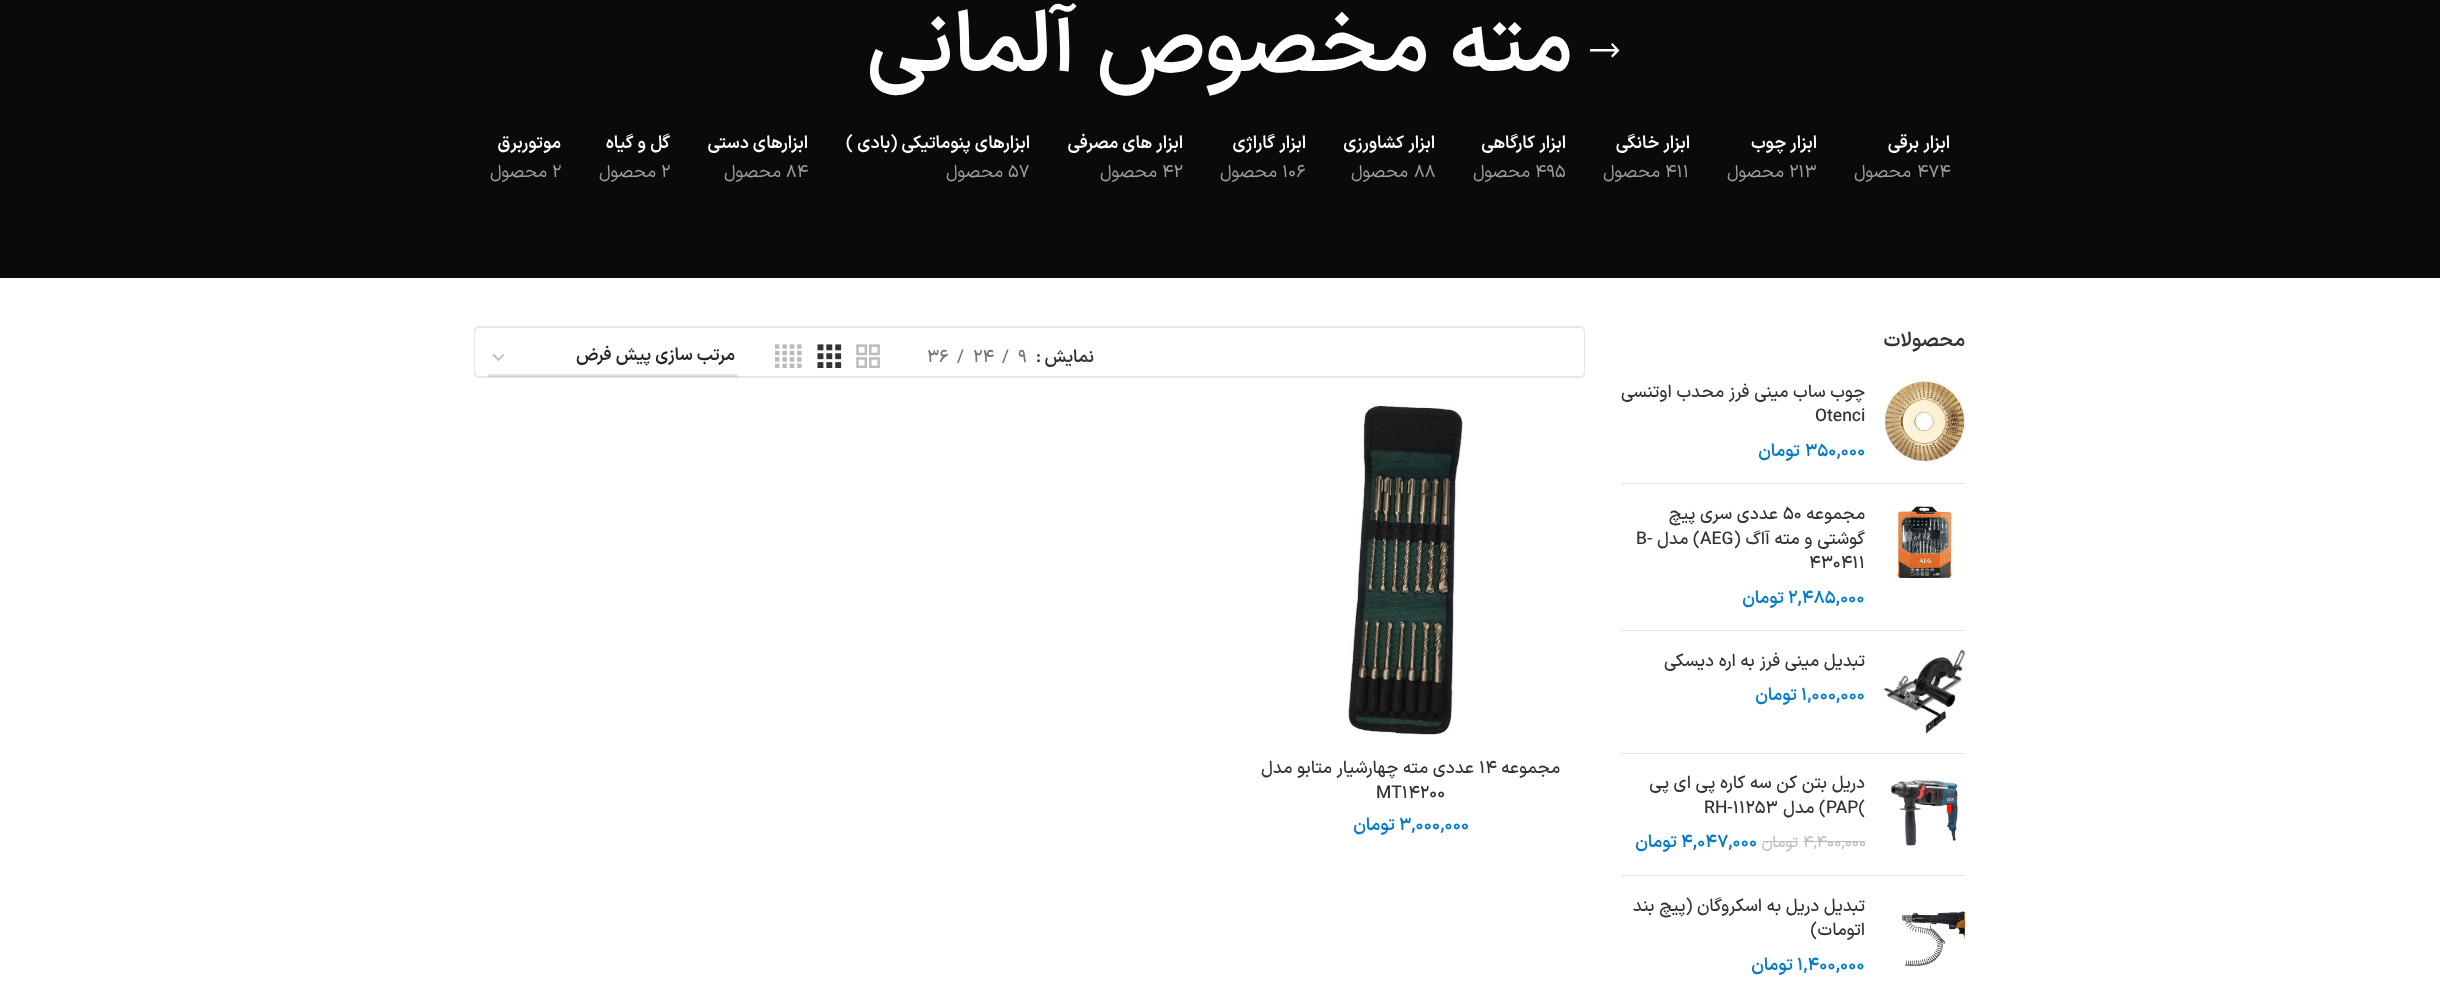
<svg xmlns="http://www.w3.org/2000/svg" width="2440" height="995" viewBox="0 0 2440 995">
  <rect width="100%" height="100%" fill="#fff"/>
  <path d="M0 0h2440v278H0z" fill="#0a0a0a"/>
  <path d="M1619.5 50.5L1612.5 43L1611 44.5L1615 49H1590V51.5H1615L1611 56L1612.5 57.5Z" fill="#fff"/>
  <path d="M1621 483h344v1H1621z" fill="#e4e4e4"/>
  <image x="1884" y="381" width="81" height="81" href="img/1.png"/>
  <path d="M1621 630h344v1H1621z" fill="#e4e4e4"/>
  <image x="1897" y="506" width="56" height="73" href="img/2.png"/>
  <path d="M1621 753h344v1H1621z" fill="#e4e4e4"/>
  <image x="1883" y="649" width="82" height="85" href="img/3.png"/>
  <path d="M1621 875h344v1H1621z" fill="#e4e4e4"/>
  <image x="1891" y="780" width="67" height="66" href="img/4.png"/>
  <path d="M1803 841h62v1H1803z" fill="#bbb"/>
  <path d="M1763 841h35v1H1763z" fill="#bbb"/>
  <image x="1902" y="911" width="63" height="56" href="img/5.png"/>
  <rect x="474" y="326" width="1111" height="52" rx="5" fill="#e6e6e6" filter="blur(0.5px)"/>
  <rect x="475" y="328" width="1109" height="48" rx="4" fill="#fff"/>
  <image x="856" y="344" width="24" height="24" href="img/6.png"/>
  <image x="817" y="344" width="25" height="25" href="img/7.png"/>
  <image x="775" y="344" width="27" height="24" href="img/8.png"/>
  <path d="M493 354.5L498.5 360L503.5 354.5" fill="none" stroke="#bbb" stroke-width="1.8"/>
  <path d="M488 374h250v3H488z" fill="#0000001a"/>
  <image x="1348" y="405" width="115" height="331" href="img/9.png"/>
  <text x="1573" y="71" font-family="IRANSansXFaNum" font-size="85" font-weight="600" direction="rtl" fill="#fff">مته مخصوص آلمانی</text>
  <text x="1950" y="148" font-family="IRANSansXFaNum" font-size="17.5" font-weight="600" direction="rtl" fill="#fff">ابزار برقی</text>
  <text x="1917" y="177" font-family="IRANSansXFaNum" font-size="17.5" fill="#9d9d9d">474</text>
  <text x="1911" y="177" font-family="IRANSansXFaNum" font-size="17.5" direction="rtl" fill="#9d9d9d">محصول</text>
  <text x="1817" y="148" font-family="IRANSansXFaNum" font-size="17.5" font-weight="600" direction="rtl" fill="#fff">ابزار چوب</text>
  <text x="1789" y="177" font-family="IRANSansXFaNum" font-size="17.5" fill="#9d9d9d">213</text>
  <text x="1784" y="177" font-family="IRANSansXFaNum" font-size="17.5" direction="rtl" fill="#9d9d9d">محصول</text>
  <text x="1690" y="148" font-family="IRANSansXFaNum" font-size="17.5" font-weight="600" direction="rtl" fill="#fff">ابزار خانگی</text>
  <text x="1665" y="177" font-family="IRANSansXFaNum" font-size="17.5" fill="#9d9d9d">411</text>
  <text x="1660" y="177" font-family="IRANSansXFaNum" font-size="17.5" direction="rtl" fill="#9d9d9d">محصول</text>
  <text x="1566" y="148" font-family="IRANSansXFaNum" font-size="17.5" font-weight="600" direction="rtl" fill="#fff">ابزار کارگاهی</text>
  <text x="1535" y="177" font-family="IRANSansXFaNum" font-size="17.5" fill="#9d9d9d">495</text>
  <text x="1530" y="177" font-family="IRANSansXFaNum" font-size="17.5" direction="rtl" fill="#9d9d9d">محصول</text>
  <text x="1435" y="148" font-family="IRANSansXFaNum" font-size="17.5" font-weight="600" direction="rtl" fill="#fff">ابزار کشاورزی</text>
  <text x="1414" y="177" font-family="IRANSansXFaNum" font-size="17.5" fill="#9d9d9d">88</text>
  <text x="1408" y="177" font-family="IRANSansXFaNum" font-size="17.5" direction="rtl" fill="#9d9d9d">محصول</text>
  <text x="1306" y="148" font-family="IRANSansXFaNum" font-size="17.5" font-weight="600" direction="rtl" fill="#fff">ابزار گاراژی</text>
  <text x="1282" y="177" font-family="IRANSansXFaNum" font-size="17.5" fill="#9d9d9d">106</text>
  <text x="1277" y="177" font-family="IRANSansXFaNum" font-size="17.5" direction="rtl" fill="#9d9d9d">محصول</text>
  <text x="1183" y="148" font-family="IRANSansXFaNum" font-size="17.5" font-weight="600" direction="rtl" fill="#fff">ابزار های مصرفی</text>
  <text x="1162" y="177" font-family="IRANSansXFaNum" font-size="17.5" fill="#9d9d9d">42</text>
  <text x="1157" y="177" font-family="IRANSansXFaNum" font-size="17.5" direction="rtl" fill="#9d9d9d">محصول</text>
  <text x="1030" y="148" font-family="IRANSansXFaNum" font-size="17.5" font-weight="600" direction="rtl" fill="#fff">ابزارهای پنوماتیکی (بادی )</text>
  <text x="1008" y="177" font-family="IRANSansXFaNum" font-size="17.5" fill="#9d9d9d">57</text>
  <text x="1003" y="177" font-family="IRANSansXFaNum" font-size="17.5" direction="rtl" fill="#9d9d9d">محصول</text>
  <text x="808" y="148" font-family="IRANSansXFaNum" font-size="17.5" font-weight="600" direction="rtl" fill="#fff">ابزارهای دستی</text>
  <text x="786" y="177" font-family="IRANSansXFaNum" font-size="17.5" fill="#9d9d9d">84</text>
  <text x="781" y="177" font-family="IRANSansXFaNum" font-size="17.5" direction="rtl" fill="#9d9d9d">محصول</text>
  <text x="670" y="148" font-family="IRANSansXFaNum" font-size="17.5" font-weight="600" direction="rtl" fill="#fff">گل و گیاه</text>
  <text x="661" y="177" font-family="IRANSansXFaNum" font-size="17.5" fill="#9d9d9d">2</text>
  <text x="656" y="177" font-family="IRANSansXFaNum" font-size="17.5" direction="rtl" fill="#9d9d9d">محصول</text>
  <text x="561" y="148" font-family="IRANSansXFaNum" font-size="17.5" font-weight="600" direction="rtl" fill="#fff">موتوربرق</text>
  <text x="552" y="177" font-family="IRANSansXFaNum" font-size="17.5" fill="#9d9d9d">2</text>
  <text x="547" y="177" font-family="IRANSansXFaNum" font-size="17.5" direction="rtl" fill="#9d9d9d">محصول</text>
  <text x="1965" y="346" font-family="IRANSansXFaNum" font-size="20" font-weight="600" direction="rtl" fill="#333">محصولات</text>
  <text x="1865" y="397" font-family="IRANSansXFaNum" font-size="17.5" font-weight="500" direction="rtl" fill="#333">چوب ساب مینی فرز محدب اوتنسی</text>
  <text x="1815" y="421" font-family="IRANSansXFaNum" font-size="17.5" font-weight="500" fill="#333">Otenci</text>
  <text x="1805" y="456" font-family="IRANSansXFaNum" font-size="17.5" font-weight="600" fill="#007bc4">۳۵۰,۰۰۰</text>
  <text x="1800" y="456" font-family="IRANSansXFaNum" font-size="17.5" font-weight="600" direction="rtl" fill="#007bc4">تومان</text>
  <text x="1865" y="519" font-family="IRANSansXFaNum" font-size="17.5" font-weight="500" direction="rtl" fill="#333">مجموعه</text>
  <text x="1783" y="519" font-family="IRANSansXFaNum" font-size="17.5" font-weight="500" fill="#333">50</text>
  <g font-family="IRANSansXFaNum" font-size="17.5" font-weight="500" direction="rtl" fill="#333">
    <text x="1778" y="519">عددی سری پیچ</text>
    <text x="1865" y="544">گوشتی و مته آاگ (</text>
  </g>
  <text x="1700" y="544" font-family="IRANSansXFaNum" font-size="17.5" font-weight="500" fill="#333">AEG</text>
  <text x="1700" y="544" font-family="IRANSansXFaNum" font-size="17.5" font-weight="500" direction="rtl" fill="#333">) مدل</text>
  <g font-family="IRANSansXFaNum" font-size="17.5" font-weight="500" fill="#333">
    <text x="1636" y="544">B-</text>
    <text x="1809" y="568">430411</text>
  </g>
  <text x="1788" y="603" font-family="IRANSansXFaNum" font-size="17.5" font-weight="600" fill="#007bc4">۲,۴۸۵,۰۰۰</text>
  <text x="1784" y="603" font-family="IRANSansXFaNum" font-size="17.5" font-weight="600" direction="rtl" fill="#007bc4">تومان</text>
  <text x="1865" y="666" font-family="IRANSansXFaNum" font-size="17.5" font-weight="500" direction="rtl" fill="#333">تبدیل مینی فرز به اره دیسکی</text>
  <text x="1801" y="700" font-family="IRANSansXFaNum" font-size="17.5" font-weight="600" fill="#007bc4">۱,۰۰۰,۰۰۰</text>
  <text x="1797" y="700" font-family="IRANSansXFaNum" font-size="17.5" font-weight="600" direction="rtl" fill="#007bc4">تومان</text>
  <text x="1865" y="788" font-family="IRANSansXFaNum" font-size="17.5" font-weight="500" direction="rtl" fill="#333">دریل بتن کن سه کاره پی ای پی</text>
  <text x="1826" y="813" font-family="IRANSansXFaNum" font-size="17.5" font-weight="500" fill="#333">PAP(</text>
  <text x="1826" y="813" font-family="IRANSansXFaNum" font-size="17.5" font-weight="500" direction="rtl" fill="#333">) مدل</text>
  <text x="1704" y="813" font-family="IRANSansXFaNum" font-size="17.5" font-weight="500" fill="#333">RH-11253</text>
  <text x="1803" y="847" font-family="IRANSansXFaNum" font-size="16" fill="#bbb">۴,۴۰۰,۰۰۰</text>
  <text x="1798" y="847" font-family="IRANSansXFaNum" font-size="16" direction="rtl" fill="#bbb">تومان</text>
  <text x="1681" y="847" font-family="IRANSansXFaNum" font-size="17.5" font-weight="600" fill="#007bc4">۴,۰۴۷,۰۰۰</text>
  <text x="1677" y="847" font-family="IRANSansXFaNum" font-size="17.5" font-weight="600" direction="rtl" fill="#007bc4">تومان</text>
  <g font-family="IRANSansXFaNum" font-size="17.5" font-weight="500" direction="rtl" fill="#333">
    <text x="1865" y="911">تبدیل دریل به اسکروگان (پیچ بند</text>
    <text x="1865" y="935">اتومات)</text>
  </g>
  <text x="1797" y="970" font-family="IRANSansXFaNum" font-size="17.5" font-weight="600" fill="#007bc4">۱,۴۰۰,۰۰۰</text>
  <text x="1793" y="970" font-family="IRANSansXFaNum" font-size="17.5" font-weight="600" direction="rtl" fill="#007bc4">تومان</text>
  <text x="1094" y="362" font-family="IRANSansXFaNum" font-size="17.5" font-weight="600" direction="rtl" fill="#333">نمایش</text>
  <text x="1036" y="362" font-family="IRANSansXFaNum" font-size="17.5" font-weight="600" fill="#333">:</text>
  <g font-family="IRANSansXFaNum" font-size="17.5" font-weight="500" fill="#767676">
    <text x="1018" y="362">9</text>
    <text x="1002" y="362">/</text>
    <text x="973" y="362">24</text>
    <text x="957" y="362">/</text>
    <text x="927" y="362">36</text>
  </g>
  <text x="735" y="360" font-family="IRANSansXFaNum" font-size="17.5" font-weight="600" direction="rtl" fill="#242424">مرتب سازی پیش فرض</text>
  <text x="1560" y="773" font-family="IRANSansXFaNum" font-size="17.5" font-weight="500" direction="rtl" fill="#333">مجموعه</text>
  <text x="1479" y="773" font-family="IRANSansXFaNum" font-size="17.5" font-weight="500" fill="#333">14</text>
  <text x="1474" y="773" font-family="IRANSansXFaNum" font-size="17.5" font-weight="500" direction="rtl" fill="#333">عددی مته چهارشیار متابو مدل</text>
  <text x="1376" y="798" font-family="IRANSansXFaNum" font-size="17.5" font-weight="500" fill="#333">MT14200</text>
  <text x="1399" y="830" font-family="IRANSansXFaNum" font-size="17.5" font-weight="600" fill="#007bc4">۳,۰۰۰,۰۰۰</text>
  <text x="1395" y="830" font-family="IRANSansXFaNum" font-size="17.5" font-weight="600" direction="rtl" fill="#007bc4">تومان</text>
</svg>
